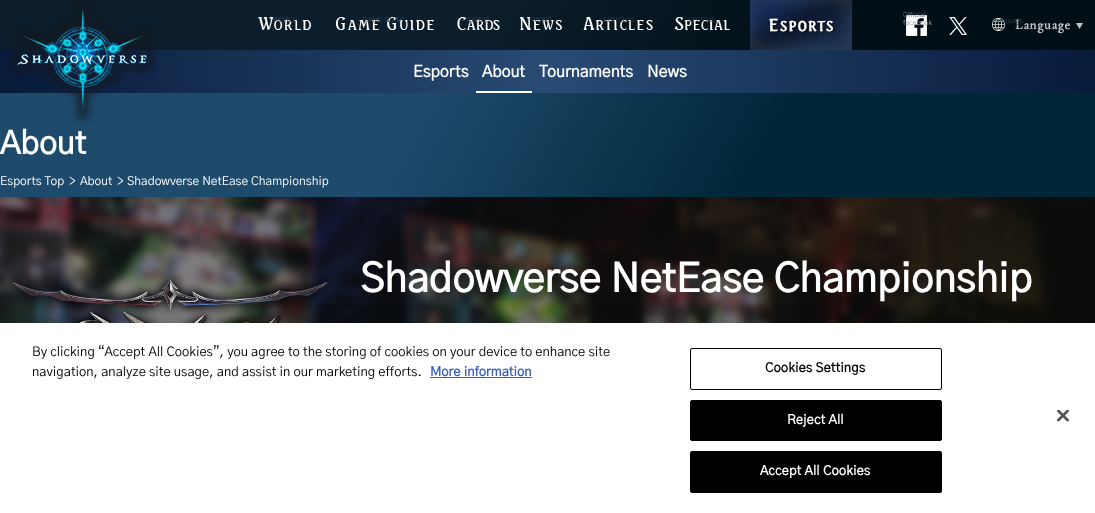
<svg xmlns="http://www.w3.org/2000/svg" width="1095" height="513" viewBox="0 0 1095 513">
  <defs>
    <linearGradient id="g1" gradientUnits="userSpaceOnUse" x1="0" y1="72" x2="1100" y2="71"><stop offset="0" stop-color="#081a3a"/><stop offset="0.5" stop-color="#284b74"/><stop offset="1" stop-color="#081a3a"/></linearGradient>
    <linearGradient id="g2" gradientUnits="userSpaceOnUse" x1="95" y1="-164" x2="1005" y2="361"><stop offset="0.4" stop-color="#1e4a6c"/><stop offset="0.7" stop-color="#002638"/></linearGradient>
    <linearGradient id="g3" gradientUnits="userSpaceOnUse" x1="95" y1="-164" x2="1005" y2="361"><stop offset="0.4" stop-color="#0c1e2b"/><stop offset="0.7" stop-color="#000f16"/></linearGradient>
  </defs>
  <rect width="100%" height="100%" fill="#fff"/>
  <path d="M0 50h1095v43H0z" fill="url(#g1)"/>
  <path d="M0 93h1095v104H0z" fill="url(#g2)"/>
  <path d="M0 0h1095v50H0z" fill="url(#g3)"/>
  <image x="8" y="0" width="150" height="125" href="img/1.png"/>
  <image x="258" y="17" width="53" height="13" href="img/2.png"/>
  <image x="335" y="17" width="99" height="13" href="img/3.png"/>
  <image x="457" y="17" width="43" height="13" href="img/4.png"/>
  <image x="520" y="17" width="42" height="13" href="img/5.png"/>
  <image x="583" y="17" width="70" height="13" href="img/6.png"/>
  <image x="674" y="17" width="56" height="13" href="img/7.png"/>
  <image x="750" y="0" width="102" height="50" href="img/8.png"/>
  <image x="906" y="15" width="21" height="21" href="img/9.png"/>
  <image x="949" y="17" width="18" height="18" href="img/10.png"/>
  <image x="992" y="18" width="91" height="16" href="img/11.png"/>
  <path d="M476 91h56v2H476z" fill="#fff"/>
  <image x="0" y="197" width="1095" height="126" href="img/12.png"/>
  <image x="8" y="273" width="324" height="50" href="img/13.png"/>
  <path d="M0 323h1095v190H0z" fill="#00000033" filter="blur(9px)"/>
  <path d="M0 323h1095v190H0z" fill="#fff"/>
  <path d="M430 377h102v1H430z" fill="#3860be"/>
  <rect x="690.5" y="348.5" width="251" height="41" rx="1.5" fill="none" stroke="#000"/>
  <rect x="690.5" y="400.5" width="251" height="40" rx="1.5" fill="#000" stroke="#000"/>
  <rect x="690.5" y="451.5" width="251" height="41" rx="1.5" fill="#000" stroke="#000"/>
  <image x="1057" y="410" width="12" height="12" href="img/14.png"/>
  <g font-family="'Gothic A1'" font-size="7" fill="#384652">
    <text x="273" y="22">WORLD</text>
    <text x="363" y="22">GAME GUIDE</text>
    <text x="467" y="22">CARDS</text>
    <text x="532" y="22">NEWS</text>
  </g>
  <g font-family="'Gothic A1'" font-size="7" fill="#2d3b45">
    <text x="603" y="22">ARTICLES</text>
    <text x="688" y="22">SPECIAL</text>
  </g>
  <text x="903" y="17" font-family="'Gothic A1'" font-size="7" fill="#5a6468">Official</text>
  <text x="903" y="25" font-family="'Gothic A1'" font-size="7" fill="#92989c">facebook</text>
  <text x="992" y="23" font-family="'Gothic A1'" font-size="7" fill="#2d3b45">Language</text>
  <g font-family="'Gothic A1'" font-size="16" font-weight="bold" fill="#fff">
    <text x="413" y="77">Esports</text>
    <text x="482" y="77">About</text>
    <text x="539" y="77">Tournaments</text>
    <text x="647" y="77">News</text>
  </g>
  <text x="0" y="154" font-family="'Gothic A1'" font-size="32" font-weight="bold" fill="#fff">About</text>
  <g font-family="'Gothic A1'" font-size="12" fill="#fff">
    <text x="0" y="185">Esports Top</text>
    <text x="69" y="185">&gt;</text>
    <text x="80" y="185">About</text>
    <text x="117" y="185">&gt;</text>
    <text x="127" y="185">Shadowverse NetEase Championship</text>
  </g>
  <text x="360" y="292" font-family="'Gothic A1'" font-size="40" font-weight="bold" fill="#fff">Shadowverse NetEase Championship</text>
  <g font-family="'Gothic A1'" font-size="13" fill="#000">
    <text x="32" y="356">By clicking “Accept All Cookies”, you agree to the storing of cookies on your device to enhance site</text>
    <text x="32" y="376">navigation, analyze site usage, and assist in our marketing efforts.</text>
  </g>
  <text x="430" y="376" font-family="'Gothic A1'" font-size="13" font-weight="bold" fill="#3860be">More information</text>
  <text x="765" y="372" font-family="'Gothic A1'" font-size="13" font-weight="bold" letter-spacing="0.1" fill="#000">Cookies Settings</text>
  <g font-family="'Gothic A1'" font-size="13" font-weight="bold" letter-spacing="0.1" fill="#fff">
    <text x="787" y="424">Reject All</text>
    <text x="760" y="475">Accept All Cookies</text>
  </g>
</svg>
